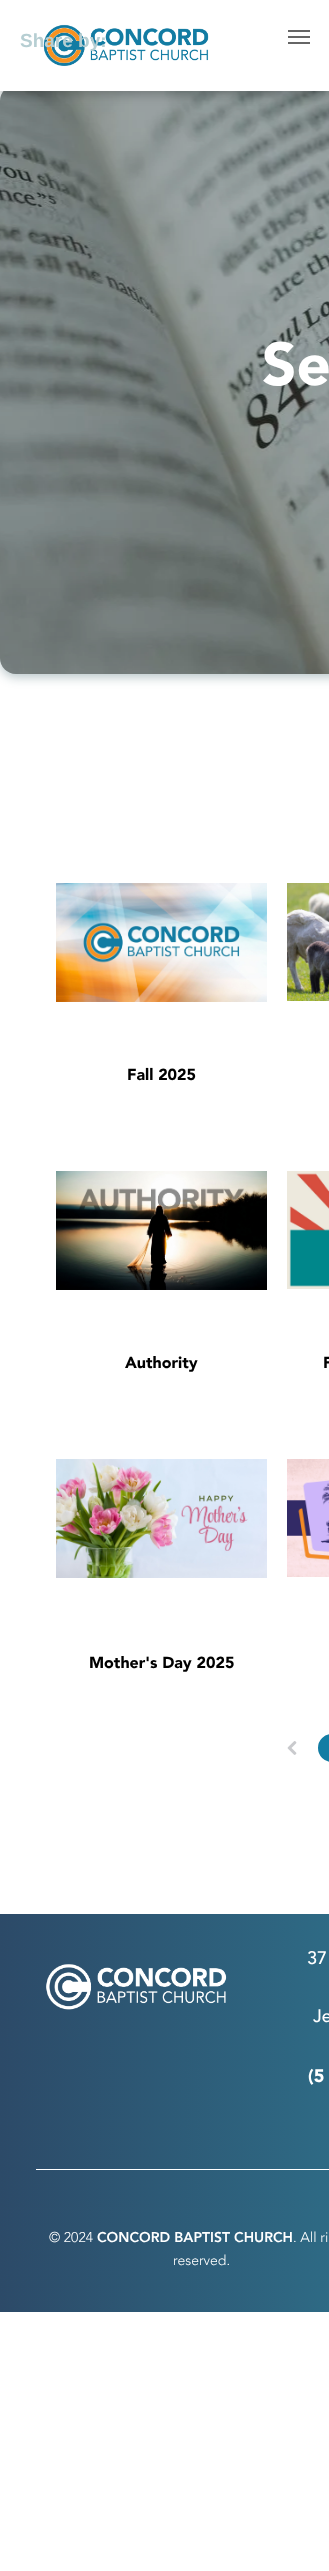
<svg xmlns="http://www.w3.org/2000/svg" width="329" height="2571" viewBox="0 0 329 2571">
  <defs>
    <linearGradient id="g1" gradientUnits="userSpaceOnUse" x1="0" y1="2031" x2="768" y2="2031"><stop offset="0" stop-color="#2c4a68"/><stop offset="1" stop-color="#3195ab"/></linearGradient>
    <linearGradient id="g2" gradientUnits="userSpaceOnUse" x1="0" y1="2179" x2="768" y2="2179"><stop offset="0" stop-color="#2c4a68"/><stop offset="1" stop-color="#3195ab"/></linearGradient>
    <linearGradient id="g3" gradientUnits="userSpaceOnUse" x1="0" y1="2261" x2="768" y2="2261"><stop offset="0" stop-color="#2c4a68"/><stop offset="1" stop-color="#3195ab"/></linearGradient>
  </defs>
  <rect width="100%" height="100%" fill="#fff"/>
  <rect y="88" width="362" height="589" rx="16" fill="#0e3d474d" filter="blur(5.5px)"/>
  <image x="0" y="91" width="329" height="583" href="img/2.png"/>
  <rect y="85" width="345" height="589" rx="16" fill="#00000042"/>
  <path d="M0 3h329v91H0z" fill="#00000040" filter="blur(5.5px)"/>
  <path d="M0 0h329v91H0z" fill="#fff"/>
  <image x="43" y="24" width="166" height="42" href="img/1.png"/>
  <path d="M288 30h22v2H288z" fill="#666"/>
  <path d="M288 36h22v2H288z" fill="#666"/>
  <path d="M288 42h22v2H288z" fill="#666"/>
  <image x="287" y="883" width="42" height="118" href="img/3.png"/>
  <image x="56" y="883" width="211" height="119" href="img/4.png"/>
  <image x="56" y="1171" width="211" height="119" href="img/5.png"/>
  <image x="287" y="1171" width="42" height="118" href="img/6.png"/>
  <image x="287" y="1459" width="42" height="118" href="img/7.png"/>
  <image x="56" y="1459" width="211" height="119" href="img/8.png"/>
  <image x="287" y="1741" width="10" height="14" href="img/9.png"/>
  <circle cx="332" cy="1748" r="15.5" fill="#137da4" stroke="#fff" stroke-width="3"/>
  <path d="M0 1914h329v234H0z" fill="url(#g1)"/>
  <image x="46" y="1964" width="181" height="46" href="img/10.png"/>
  <path d="M0 2148h329v61H0z" fill="url(#g2)"/>
  <path d="M36 2169h293v1H36z" fill="#fff"/>
  <path d="M0 2209h329v103H0z" fill="url(#g3)"/>
  <text x="20" y="47" font-family="Liberation Sans" font-size="19" font-weight="bold" fill="#b6ced2">Share by:</text>
  <text x="262" y="385" font-family="Avenir" font-size="60" font-weight="900" fill="#fff">Se</text>
  <g font-family="Avenir" font-size="16" font-weight="900" fill="#000">
    <text x="127" y="1080">Fall 2025</text>
    <text x="125" y="1368">Authority</text>
    <text x="323" y="1368">F</text>
    <text x="89" y="1668">Mother's Day 2025</text>
  </g>
  <g font-family="Avenir" font-size="18" font-weight="500" fill="#fff">
    <text x="307" y="1964">37</text>
    <text x="313" y="2022">Je</text>
  </g>
  <text x="308" y="2082" font-family="Avenir" font-size="18" font-weight="900" fill="#fff">(5</text>
  <text x="49" y="2242" font-family="Avenir" font-size="14" font-weight="300" fill="#fff">© 2024</text>
  <text x="97" y="2242" font-family="'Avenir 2'" font-size="14" font-weight="900" fill="#fff">CONCORD BAPTIST CHURCH</text>
  <g font-family="Avenir" font-size="14" font-weight="300" fill="#fff">
    <text x="293" y="2242">. All ri</text>
    <text x="173" y="2265">reserved.</text>
  </g>
</svg>
